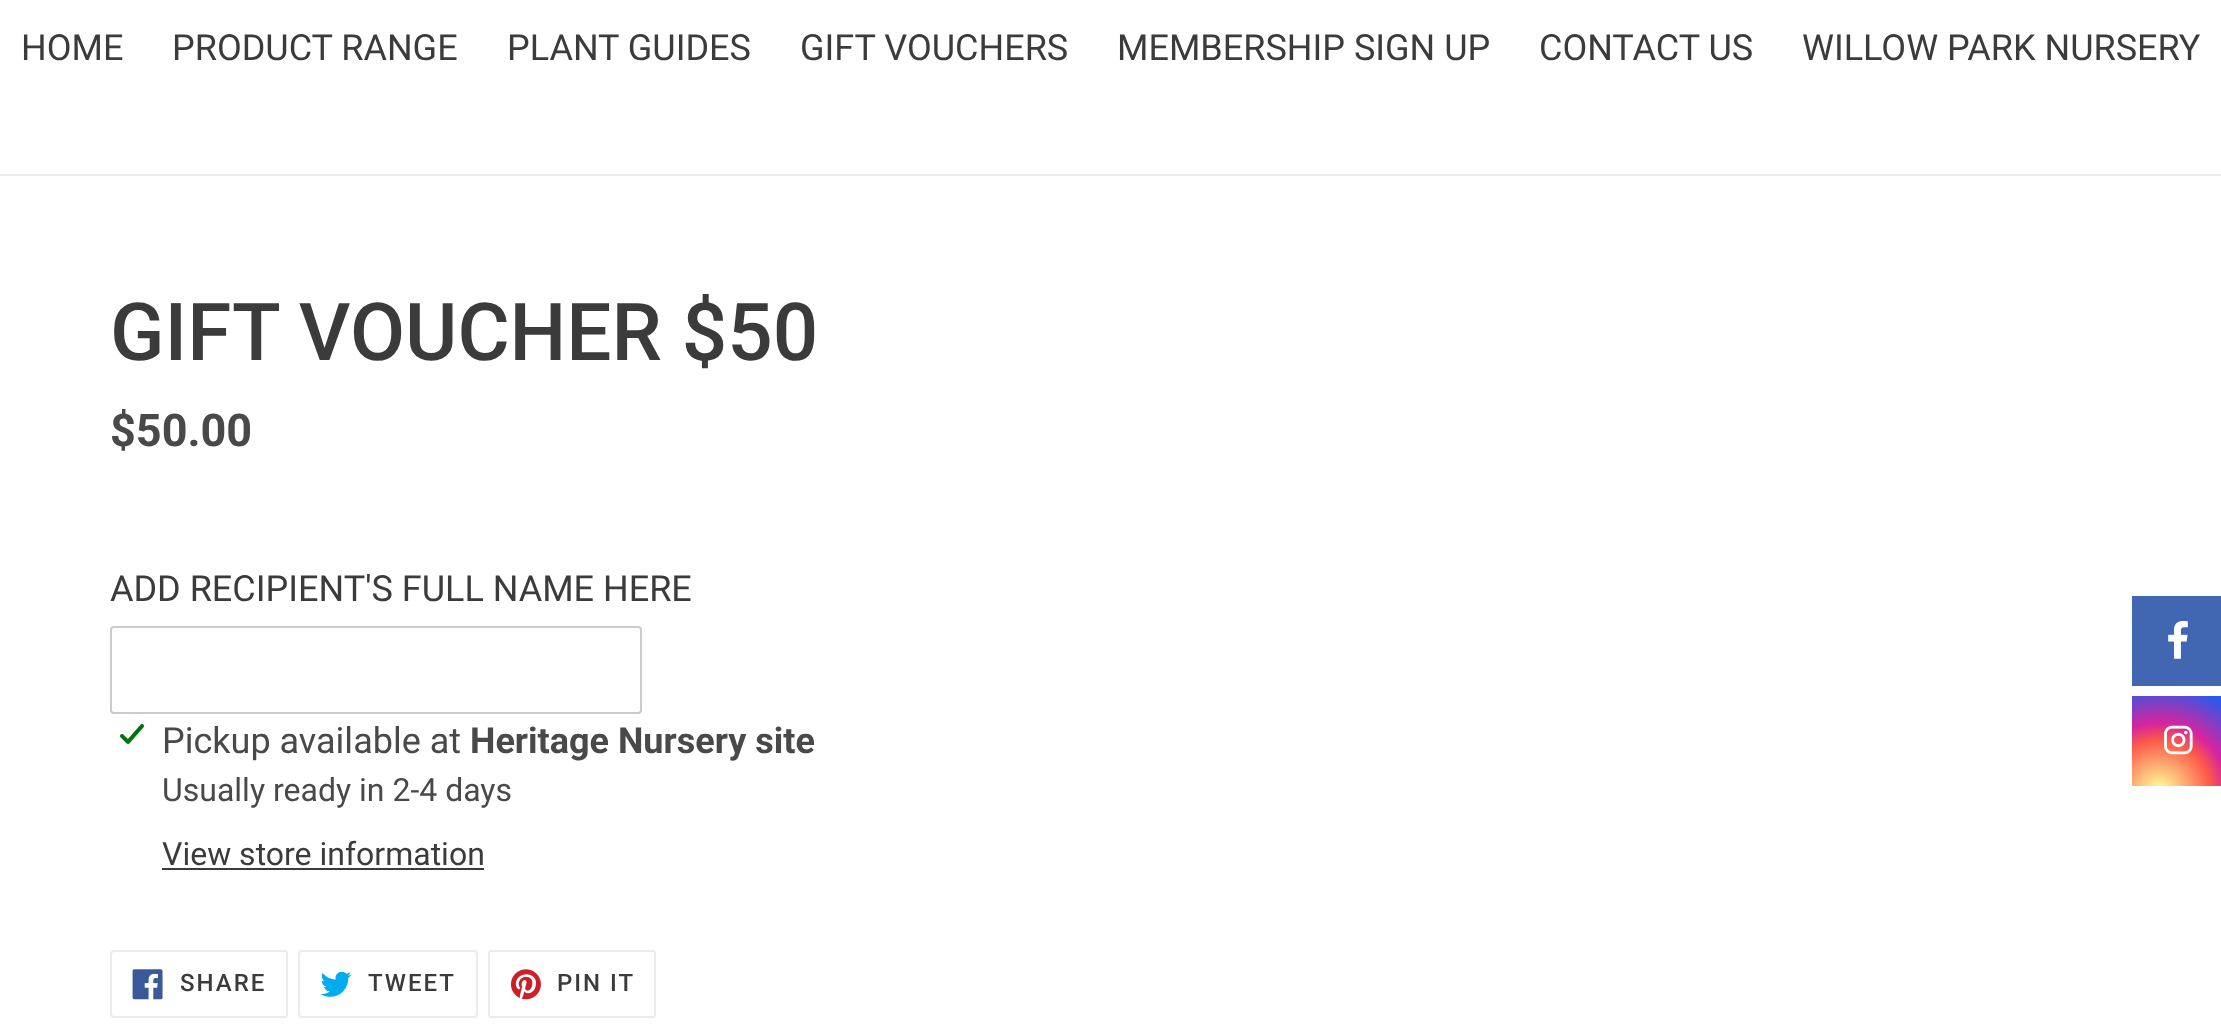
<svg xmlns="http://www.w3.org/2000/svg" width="2221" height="1034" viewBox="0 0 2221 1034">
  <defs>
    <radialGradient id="g1" gradientUnits="userSpaceOnUse" cx="2159" cy="792" r="115"><stop offset="0" stop-color="#fdf497"/><stop offset="0.05" stop-color="#fdf497"/><stop offset="0.45" stop-color="#fd5949"/><stop offset="0.6" stop-color="#d6249f"/><stop offset="0.95" stop-color="#285aeb"/></radialGradient>
  </defs>
  <rect width="100%" height="100%" fill="#fff"/>
  <path d="M0 174h2221v2H0z" fill="#ebebeb"/>
  <rect x="111" y="627" width="530" height="86" rx="3" fill="none" stroke="#ccc" stroke-width="2"/>
  <image x="120" y="724" width="24" height="20" href="img/1.png"/>
  <path d="M162 868h322v2H162z" fill="#3b3b3b"/>
  <rect x="111" y="951" width="176" height="66" rx="3" fill="none" stroke="#ebebeb" stroke-width="2"/>
  <image x="132" y="969" width="31" height="31" href="img/2.png"/>
  <rect x="299" y="951" width="178" height="66" rx="3" fill="none" stroke="#ebebeb" stroke-width="2"/>
  <image x="320" y="971" width="32" height="26" href="img/3.png"/>
  <rect x="489" y="951" width="166" height="66" rx="3" fill="none" stroke="#ebebeb" stroke-width="2"/>
  <image x="510" y="969" width="31" height="31" href="img/4.png"/>
  <path d="M2132 596h89v90H2132z" fill="#4267b2"/>
  <image x="2168" y="621" width="20" height="38" href="img/5.png"/>
  <path d="M2132 696h89v90H2132z" fill="url(#g1)"/>
  <image x="2164" y="725" width="29" height="30" href="img/6.png"/>
  <g font-family="Roboto" font-size="36" fill="#3b3b3b">
    <text x="21" y="60">HOME</text>
    <text x="172" y="60">PRODUCT RANGE</text>
    <text x="507" y="60">PLANT GUIDES</text>
    <text x="800" y="60">GIFT VOUCHERS</text>
    <text x="1117" y="60">MEMBERSHIP SIGN UP</text>
    <text x="1539" y="60">CONTACT US</text>
    <text x="1802" y="60">WILLOW PARK NURSERY</text>
  </g>
  <text x="110" y="360" font-family="Roboto" font-size="80" font-weight="500" fill="#3b3b3b">GIFT VOUCHER $50</text>
  <text x="110" y="446" font-family="Roboto" font-size="45" font-weight="bold" fill="#494949">$50.00</text>
  <text x="110" y="601" font-family="Roboto" font-size="36" fill="#3b3b3b">ADD RECIPIENT'S FULL NAME HERE</text>
  <text x="162" y="753" font-family="Roboto" font-size="36" fill="#494949">Pickup available at</text>
  <text x="470" y="753" font-family="Roboto" font-size="36" font-weight="bold" fill="#494949">Heritage Nursery site</text>
  <text x="162" y="801" font-family="Roboto" font-size="32" fill="#494949">Usually ready in 2-4 days</text>
  <text x="162" y="865" font-family="Roboto" font-size="32" fill="#3b3b3b">View store information</text>
  <g font-family="Roboto" font-size="24" font-weight="500" letter-spacing="2" fill="#3b3b3b">
    <text x="180" y="991">SHARE</text>
    <text x="368" y="991">TWEET</text>
    <text x="557" y="991">PIN IT</text>
  </g>
</svg>
